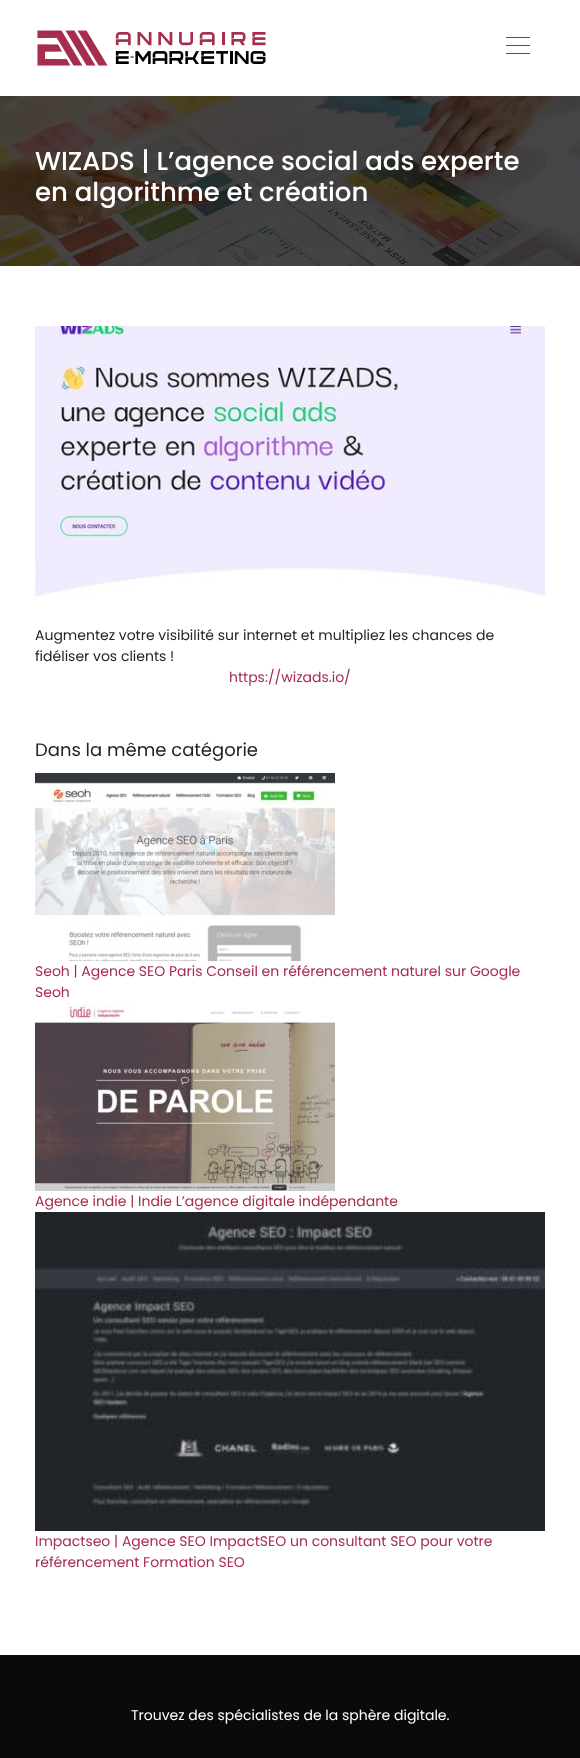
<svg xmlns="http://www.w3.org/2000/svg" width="580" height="1758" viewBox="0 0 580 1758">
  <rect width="100%" height="100%" fill="#fff"/>
  <image x="37" y="30" width="229" height="36" href="img/1.png"/>
  <path d="M506 37h24v1H506z" fill="#a62d4d"/>
  <path d="M506 45h24v1H506z" fill="#a62d4d"/>
  <path d="M506 53h24v1H506z" fill="#a62d4d"/>
  <image x="0" y="96" width="580" height="170" href="img/2.png"/>
  <image x="35" y="326" width="510" height="271" href="img/3.png"/>
  <image x="35" y="773" width="300" height="188" href="img/4.png"/>
  <image x="35" y="1003" width="300" height="188" href="img/5.png"/>
  <image x="35" y="1212" width="510" height="319" href="img/6.png"/>
  <path d="M0 1655h580v103H0z" fill="#0a0a0a"/>
  <g font-family="Poppins" font-size="26" font-weight="500" fill="#fff">
    <text x="35" y="170">WIZADS | L’agence social ads experte</text>
    <text x="35" y="201">en algorithme et création</text>
  </g>
  <g font-family="Poppins" font-size="14" fill="#212529">
    <text x="35" y="640">Augmentez votre visibilité sur internet et multipliez les chances de</text>
    <text x="35" y="661">fidéliser vos clients !</text>
  </g>
  <text x="229" y="682" font-family="Poppins" font-size="14" fill="#a62d4d">https://wizads.io/</text>
  <text x="35" y="756" font-family="Poppins" font-size="18" fill="#212529">Dans la même catégorie</text>
  <g font-family="Poppins" font-size="14" fill="#a62d4d">
    <text x="35" y="976">Seoh | Agence SEO Paris Conseil en référencement naturel sur Google</text>
    <text x="35" y="997">Seoh</text>
    <text x="35" y="1206">Agence indie | Indie L’agence digitale indépendante</text>
    <text x="35" y="1546">Impactseo | Agence SEO ImpactSEO un consultant SEO pour votre</text>
    <text x="35" y="1567">référencement Formation SEO</text>
  </g>
  <text x="131" y="1720" font-family="Poppins" font-size="14" fill="#fff">Trouvez des spécialistes de la sphère digitale.</text>
</svg>
